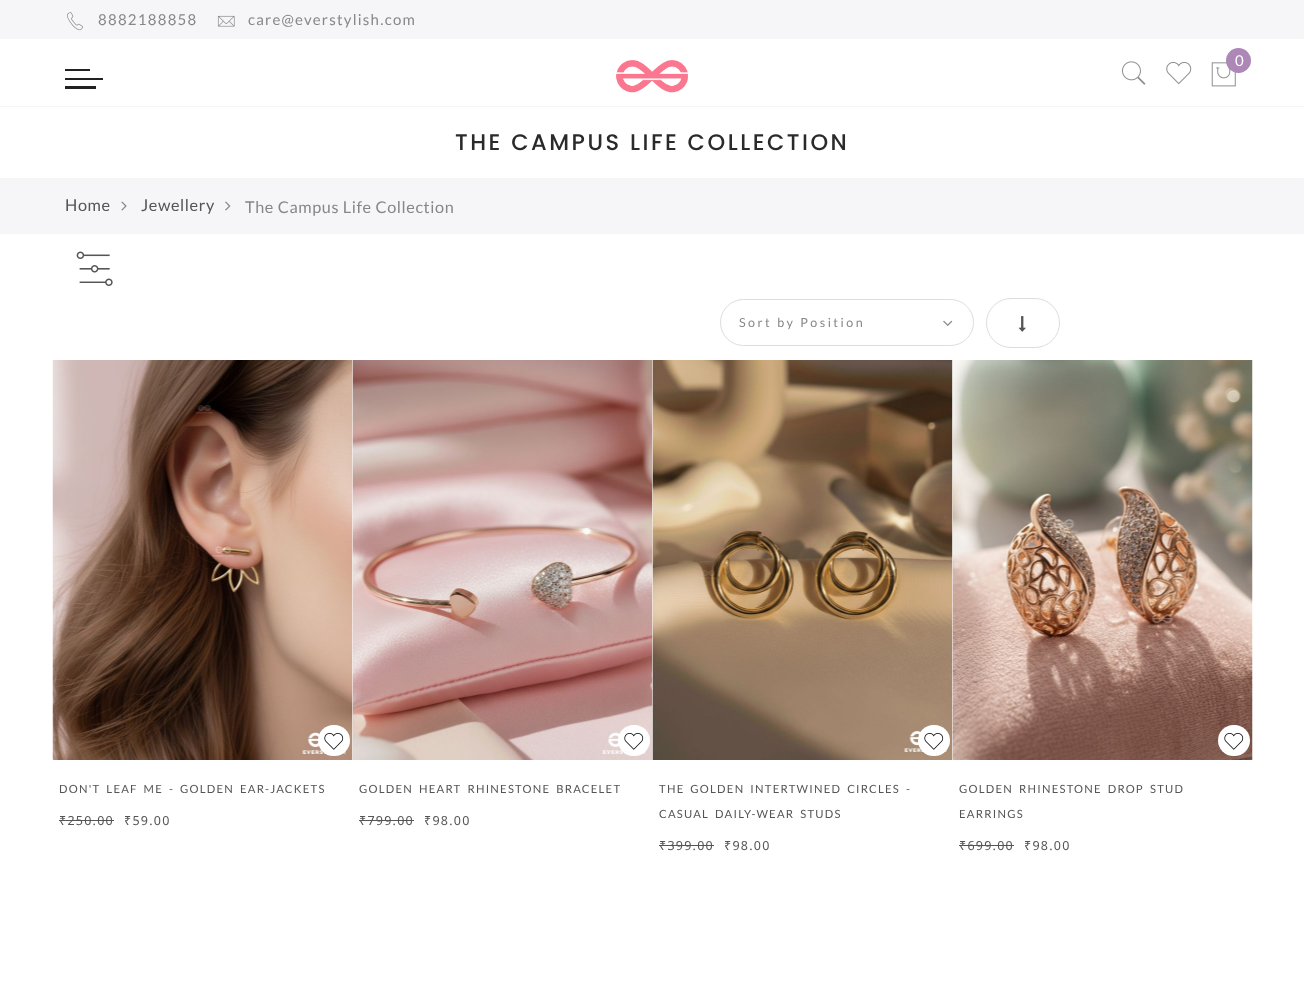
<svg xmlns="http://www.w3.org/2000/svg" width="1304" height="998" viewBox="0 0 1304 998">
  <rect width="100%" height="100%" fill="#fff"/>
  <path d="M0 106h1304v1H0z" fill="#f5f5f5"/>
  <path d="M0 0h1304v39H0z" fill="#f6f6f8"/>
  <image x="67" y="12" width="16" height="19" href="img/1.png"/>
  <image x="217" y="15" width="18" height="12" href="img/2.png"/>
  <path d="M65 69h25v2H65z" fill="#222"/>
  <path d="M65 78h38v2H65z" fill="#222"/>
  <path d="M65 86h31v3H65z" fill="#222"/>
  <image x="615" y="60" width="73" height="33" href="img/3.png"/>
  <image x="1122" y="61" width="24" height="24" href="img/4.png"/>
  <image x="1166" y="61" width="26" height="24" href="img/5.png"/>
  <image x="1211" y="62" width="25" height="25" href="img/6.png"/>
  <circle cx="1238.5" cy="60.5" r="12.5" fill="#ad87b6"/>
  <path d="M0 178h1304v1H0z" fill="#f5f5f5"/>
  <path d="M0 179h1304v55H0z" fill="#f6f6f8"/>
  <image x="121" y="201" width="6" height="10" href="img/7.png"/>
  <image x="225" y="201" width="6" height="10" href="img/8.png"/>
  <image x="76" y="251" width="37" height="35" href="img/9.png"/>
  <rect x="720.5" y="299.5" width="253" height="46" rx="23" fill="none" stroke="#ddd"/>
  <image x="943" y="320" width="10" height="6" href="img/10.png"/>
  <rect x="986.5" y="298.5" width="73" height="49" rx="24.5" fill="none" stroke="#ddd"/>
  <image x="1018" y="316" width="8" height="16" href="img/11.png"/>
  <image x="52" y="360" width="301" height="400" href="img/12.png"/>
  <rect x="318" y="725" width="32" height="31" rx="15.5" fill="#fff"/>
  <image x="324" y="733" width="20" height="17" href="img/13.png"/>
  <path d="M59 820h55v1H59z" fill="#555"/>
  <image x="352" y="360" width="301" height="400" href="img/14.png"/>
  <rect x="618" y="725" width="32" height="31" rx="15.5" fill="#fff"/>
  <image x="624" y="733" width="20" height="17" href="img/13.png"/>
  <path d="M359 820h55v1H359z" fill="#555"/>
  <image x="652" y="360" width="301" height="400" href="img/15.png"/>
  <rect x="918" y="725" width="32" height="31" rx="15.5" fill="#fff"/>
  <image x="924" y="733" width="20" height="17" href="img/13.png"/>
  <path d="M659 845h55v1H659z" fill="#555"/>
  <image x="952" y="360" width="301" height="400" href="img/16.png"/>
  <rect x="1218" y="725" width="32" height="31" rx="15.5" fill="#fff"/>
  <image x="1224" y="733" width="20" height="17" href="img/13.png"/>
  <path d="M959 845h55v1H959z" fill="#555"/>
  <g font-family="Lato" font-size="15" letter-spacing="1.25" fill="#878787">
    <text x="98" y="25">8882188858</text>
    <text x="248" y="25">care@everstylish.com</text>
  </g>
  <text x="1235" y="66" font-family="Lato" font-size="15" letter-spacing="0.6" fill="#fff">0</text>
  <text x="455" y="150" font-family="Poppins" font-size="22.5" font-weight="500" letter-spacing="2.5" fill="#2a2a2a">THE CAMPUS LIFE COLLECTION</text>
  <g font-family="Lato" font-size="16.25" letter-spacing="0.6" fill="#555">
    <text x="65" y="211">Home</text>
    <text x="141" y="211">Jewellery</text>
  </g>
  <text x="245" y="213" font-family="Lato" font-size="16.25" letter-spacing="0.6" fill="#878787">The Campus Life Collection</text>
  <text x="739" y="327" font-family="Lato" font-size="12.5" letter-spacing="2.5" fill="#878787">Sort by Position</text>
  <text x="59" y="793" word-spacing="2.5" font-family="Lato" font-size="11.25" letter-spacing="1.25" fill="#555">DON'T LEAF ME - GOLDEN EAR-JACKETS</text>
  <g font-family="Noto Sans" font-size="12.5" letter-spacing="1.25" fill="#555">
    <text x="59" y="825">₹250.00</text>
    <text x="124" y="825">₹59.00</text>
  </g>
  <text x="359" y="793" word-spacing="2.5" font-family="Lato" font-size="11.25" letter-spacing="1.25" fill="#555">GOLDEN HEART RHINESTONE BRACELET</text>
  <g font-family="Noto Sans" font-size="12.5" letter-spacing="1.25" fill="#555">
    <text x="359" y="825">₹799.00</text>
    <text x="424" y="825">₹98.00</text>
  </g>
  <g font-family="Lato" font-size="11.25" letter-spacing="1.25" fill="#555">
    <text x="659" y="793" word-spacing="2.5">THE GOLDEN INTERTWINED CIRCLES -</text>
    <text x="659" y="818" word-spacing="2.5">CASUAL DAILY-WEAR STUDS</text>
  </g>
  <g font-family="Noto Sans" font-size="12.5" letter-spacing="1.25" fill="#555">
    <text x="659" y="850">₹399.00</text>
    <text x="724" y="850">₹98.00</text>
  </g>
  <g font-family="Lato" font-size="11.25" letter-spacing="1.25" fill="#555">
    <text x="959" y="793" word-spacing="2.5">GOLDEN RHINESTONE DROP STUD</text>
    <text x="959" y="818">EARRINGS</text>
  </g>
  <g font-family="Noto Sans" font-size="12.5" letter-spacing="1.25" fill="#555">
    <text x="959" y="850">₹699.00</text>
    <text x="1024" y="850">₹98.00</text>
  </g>
</svg>
